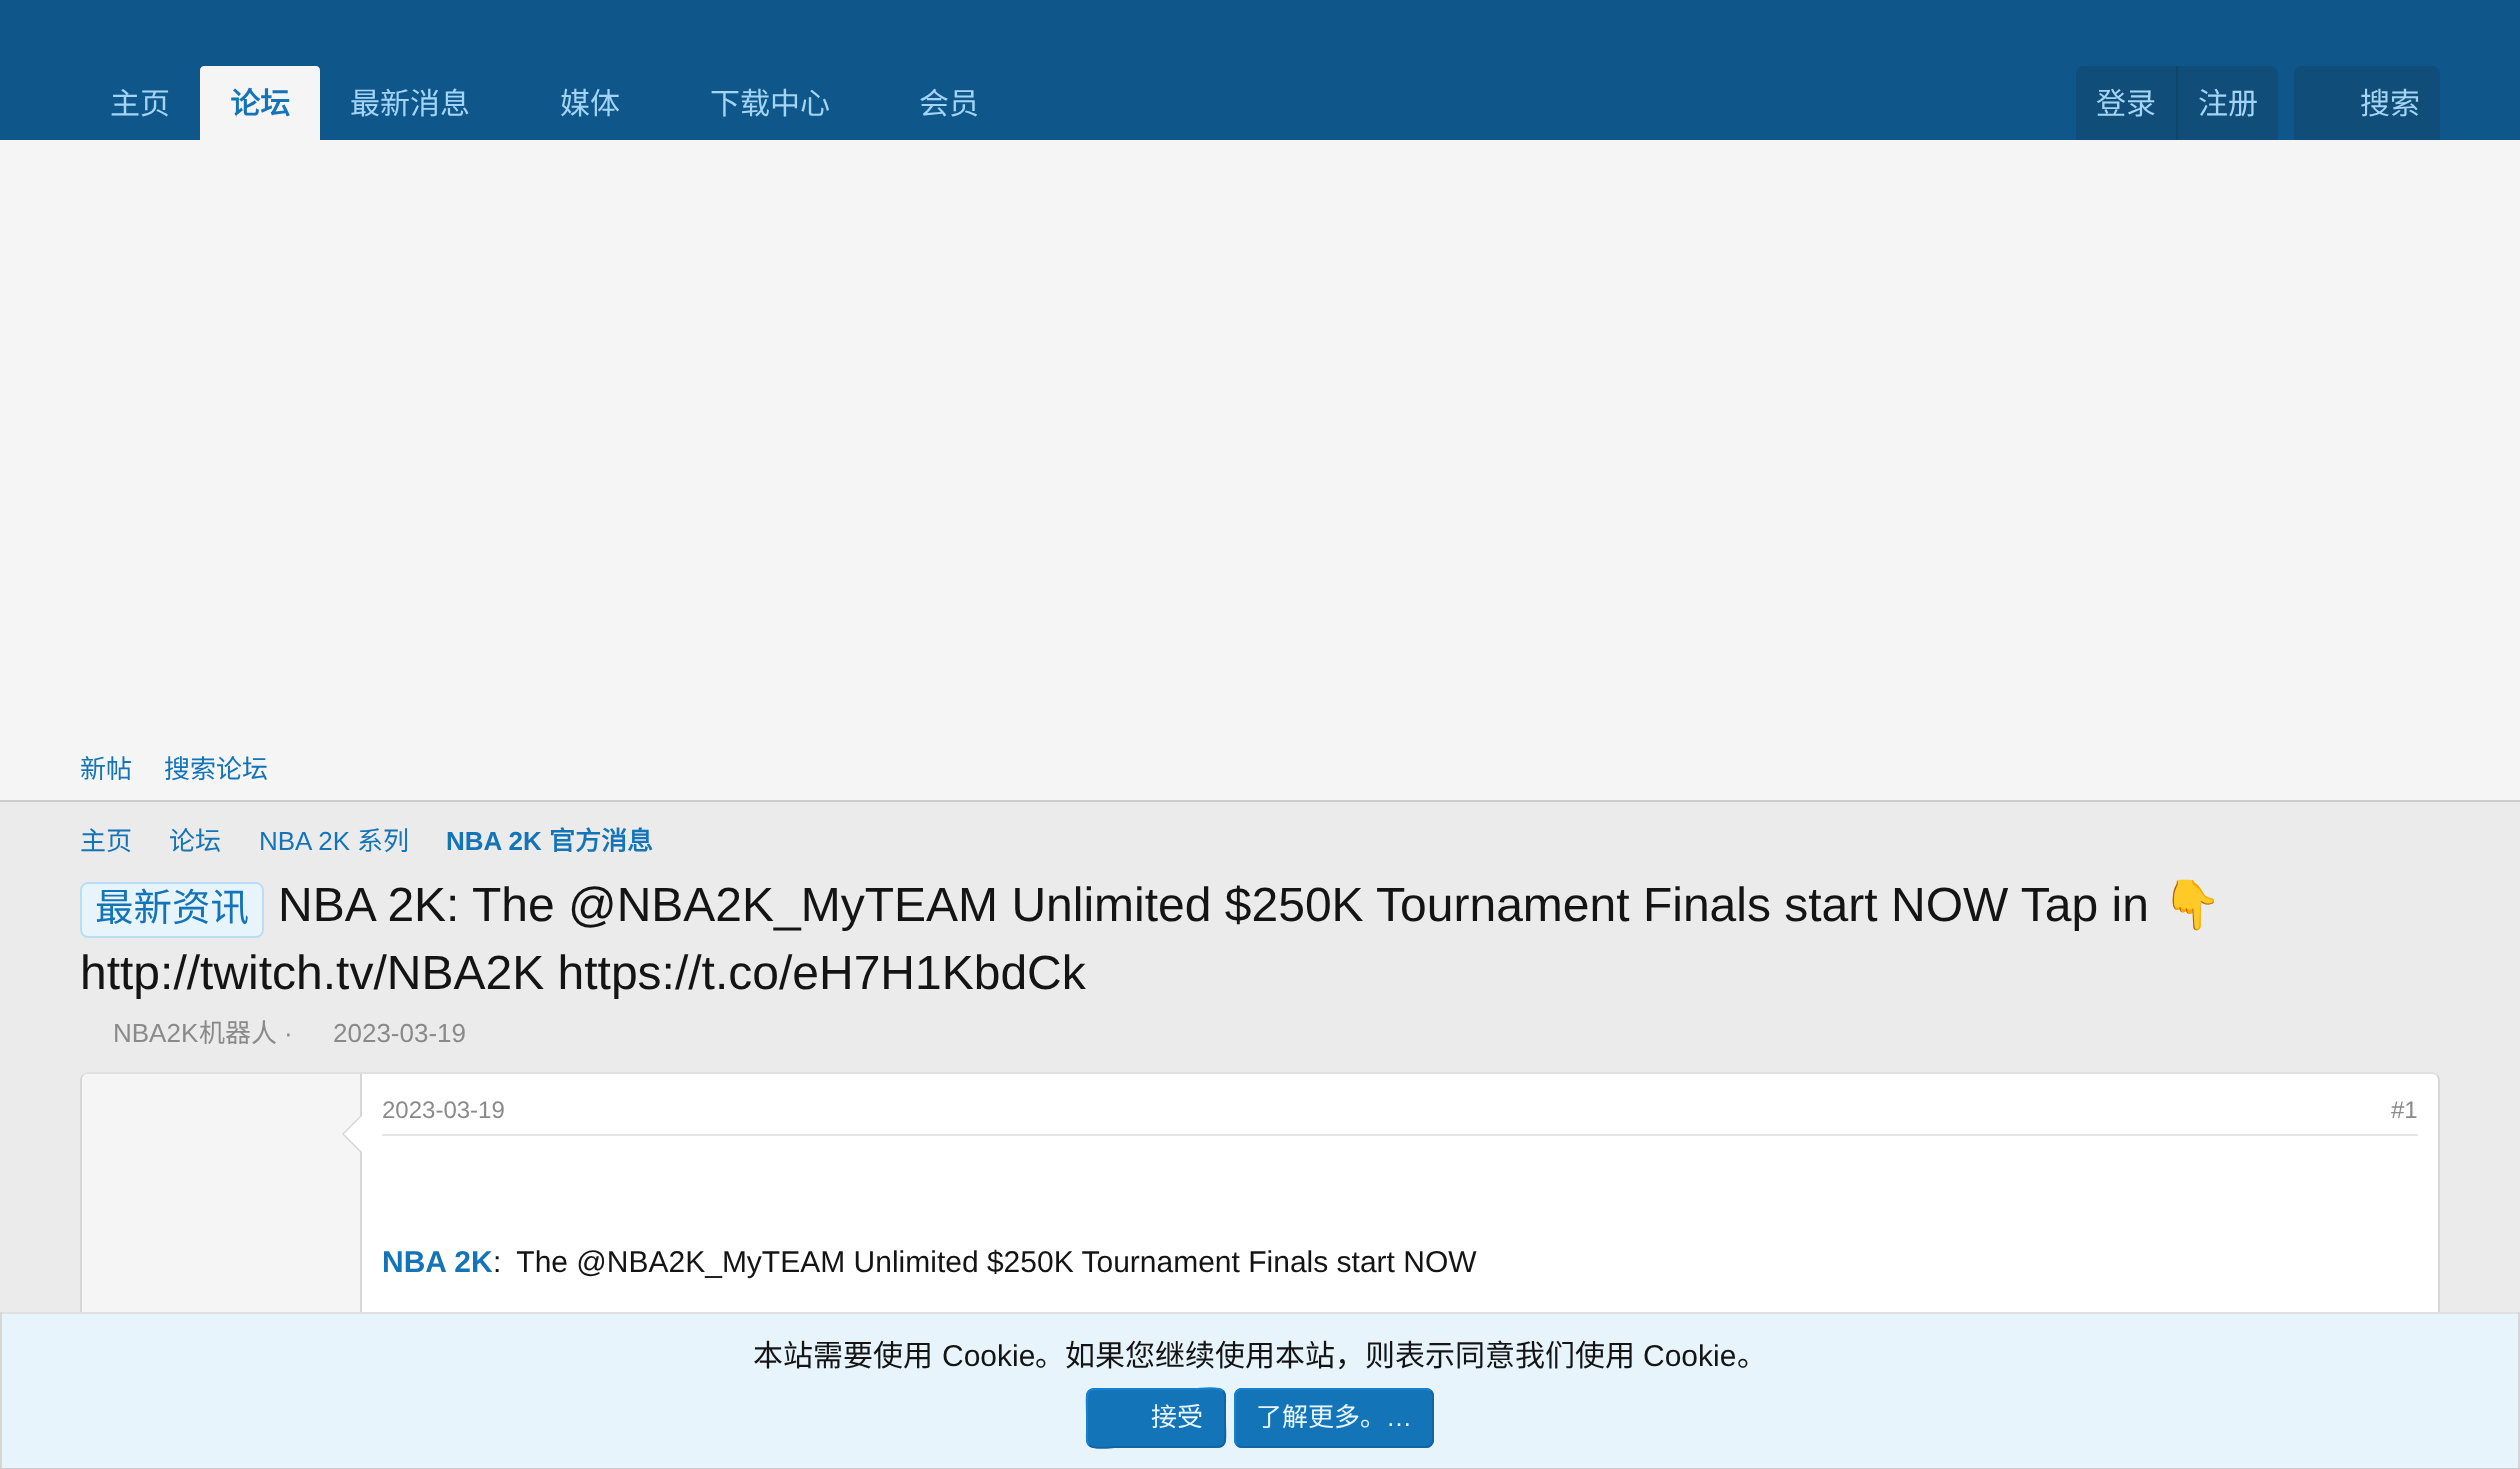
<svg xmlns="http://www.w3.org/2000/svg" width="2520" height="1469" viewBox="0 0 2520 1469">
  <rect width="100%" height="100%" fill="#ebebeb"/>
  <path d="M0 0h2520v140H0z" fill="#0f578a"/>
  <path d="M204 66H316C318 66 320 68 320 70V140H200V70C200 68 202 66 204 66Z" fill="#f5f5f5"/>
  <path d="M2084 66H2270C2274.5 66 2278 69.5 2278 74V140H2076V74C2076 69.5 2079.5 66 2084 66Z" fill="#104d78"/>
  <path d="M2176 66h2v74H2176z" fill="#114469"/>
  <path d="M2302 66H2432C2436.5 66 2440 69.5 2440 74V140H2294V74C2294 69.5 2297.5 66 2302 66Z" fill="#104d78"/>
  <path d="M0 140h2520v660H0z" fill="#f5f5f5"/>
  <path d="M0 800h2520v2H0z" fill="#ccc"/>
  <rect x="81" y="883" width="182" height="54" rx="7" fill="#e8f4fc" stroke="#baddf7" stroke-width="2"/>
  <rect x="80" y="1072" width="2360" height="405" rx="8" fill="#fff"/>
  <path d="M83 1075C84.5 1073.5 86 1073 88 1073H2432C2434 1073 2435.5 1073.5 2437 1075" fill="none" stroke="#e0e0e0" stroke-width="2"/>
  <path d="M2437 1075C2438.5 1076.5 2439 1078 2439 1080V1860C2439 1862 2438.5 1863.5 2437 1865" fill="none" stroke="#d6d6d6" stroke-width="2"/>
  <path d="M83 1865C81.5 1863.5 81 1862 81 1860V1080C81 1078 81.5 1076.5 83 1075" fill="none" stroke="#d6d6d6" stroke-width="2"/>
  <path d="M88 1074H362V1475H88C84.5 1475 82 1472.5 82 1469V1080C82 1076.5 84.5 1074 88 1074Z" fill="#f5f5f5"/>
  <path d="M360 1074h2v238H360z" fill="#d6d6d6"/>
  <path d="M362 1114V1154L342 1134Z" fill="#d6d6d6"/>
  <path d="M362 1116V1152L344 1134Z" fill="#fff"/>
  <path d="M382 1134h2036v2H382z" fill="#e6e6e6"/>
  <path d="M2 1314h2516v154H2z" fill="#e8f4fc"/>
  <path d="M0 1312h2520v2H0z" fill="#e0e0e0"/>
  <path d="M2518 1312h2v157H2518z" fill="#d6d6d6"/>
  <path d="M0 1468h2520v1H0z" fill="#ccc"/>
  <path d="M0 1312h2v157H0z" fill="#d6d6d6"/>
  <rect x="1086" y="1388" width="140" height="60" rx="8" fill="#1474b8"/>
  <path d="M1223 1391C1226 1394 1225 1399.5 1225 1403.5V1418C1225 1450 1230 1447 1197.5 1447H1114.5C1112.5 1447 1094 1450 1089 1445" fill="none" stroke="#1265a1" stroke-width="2"/>
  <path d="M1089 1445C1086 1442 1087 1436.5 1087 1432.5V1418C1087 1386 1082 1389 1114.5 1389H1197.5C1199.5 1389 1218 1386 1223 1391" fill="none" stroke="#1782cf" stroke-width="2"/>
  <rect x="1234" y="1388" width="200" height="60" rx="8" fill="#1474b8"/>
  <path d="M1431 1391C1432.5 1392.5 1433 1394 1433 1396V1440C1433 1442 1432.5 1443.5 1431 1445C1429.5 1446.5 1428 1447 1426 1447H1242C1240 1447 1238.5 1446.5 1237 1445" fill="none" stroke="#1265a1" stroke-width="2"/>
  <path d="M1237 1445C1235.5 1443.5 1235 1442 1235 1440V1396C1235 1394 1235.5 1392.5 1237 1391C1238.5 1389.5 1240 1389 1242 1389H1426C1428 1389 1429.5 1389.5 1431 1391" fill="none" stroke="#1782cf" stroke-width="2"/>
  <text x="110" y="114" font-family="Noto Sans CJK SC" font-size="30" fill="#a3d4f5">主页</text>
  <text x="230" y="114" font-family="Noto Sans CJK SC" font-size="30" font-weight="bold" fill="#1474b8">论坛</text>
  <g font-family="Noto Sans CJK SC" font-size="30" fill="#a3d4f5">
    <text x="350" y="114">最新消息</text>
    <text x="560" y="114">媒体</text>
    <text x="710" y="114">下载中心</text>
    <text x="919" y="114">会员</text>
    <text x="2096" y="114">登录</text>
    <text x="2198" y="114">注册</text>
    <text x="2360" y="114">搜索</text>
  </g>
  <g font-family="Noto Sans CJK SC" font-size="26" fill="#1474b8">
    <text x="80" y="778">新帖</text>
    <text x="164" y="778">搜索论坛</text>
    <text x="80" y="850">主页</text>
    <text x="169" y="850">论坛</text>
  </g>
  <text x="259" y="850" font-family="Liberation Sans" font-size="26" fill="#1474b8">NBA 2K</text>
  <text x="357" y="850" font-family="Noto Sans CJK SC" font-size="26" fill="#1474b8">系列</text>
  <text x="446" y="850" font-family="Liberation Sans" font-size="26" font-weight="bold" fill="#1474b8">NBA 2K</text>
  <text x="549" y="850" font-family="Noto Sans CJK SC" font-size="26" font-weight="bold" fill="#1474b8">官方消息</text>
  <text x="95" y="921" font-family="Noto Sans CJK SC" font-size="38.5" fill="#1474b8">最新资讯</text>
  <text x="278" y="921" font-family="Liberation Sans" font-size="48" fill="#141414">NBA 2K: The @NBA2K_MyTEAM Unlimited $250K Tournament Finals start NOW Tap in</text>
  <text x="2162" y="921" font-family="Noto Color Emoji" font-size="48" fill="#141414">👇</text>
  <text x="80" y="989" font-family="Liberation Sans" font-size="48" fill="#141414">http://twitch.tv/NBA2K https://t.co/eH7H1KbdCk</text>
  <text x="113" y="1042" font-family="Liberation Sans" font-size="26" fill="#8a8a8a">NBA2K</text>
  <text x="199" y="1042" font-family="Noto Sans CJK SC" font-size="26" fill="#8a8a8a">机器人</text>
  <g font-family="Liberation Sans" font-size="26" fill="#8a8a8a">
    <text x="284" y="1042">·</text>
    <text x="333" y="1042">2023-03-19</text>
  </g>
  <g font-family="Liberation Sans" font-size="24" fill="#8a8a8a">
    <text x="382" y="1118">2023-03-19</text>
    <text x="2391" y="1118">#1</text>
  </g>
  <text x="382" y="1272" font-family="Liberation Sans" font-size="30" font-weight="bold" fill="#1474b8">NBA 2K</text>
  <text x="493" y="1272" font-family="Liberation Sans" font-size="30" fill="#141414">: The @NBA2K_MyTEAM Unlimited $250K Tournament Finals start NOW</text>
  <text x="753" y="1366" font-family="Noto Sans CJK SC" font-size="30" fill="#141414">本站需要使用</text>
  <text x="942" y="1366" font-family="Liberation Sans" font-size="30" fill="#141414">Cookie</text>
  <text x="1035" y="1366" font-family="Noto Sans CJK SC" font-size="30" fill="#141414">。如果您继续使用本站，则表示同意我们使用</text>
  <text x="1643" y="1366" font-family="Liberation Sans" font-size="30" fill="#141414">Cookie</text>
  <text x="1737" y="1366" font-family="Noto Sans CJK SC" font-size="30" fill="#141414">。</text>
  <g font-family="Noto Sans CJK SC" font-size="26" fill="#e8f4fc">
    <text x="1151" y="1426">接受</text>
    <text x="1256" y="1426">了解更多。</text>
  </g>
  <text x="1386" y="1426" font-family="Liberation Sans" font-size="26" fill="#e8f4fc">…</text>
</svg>
